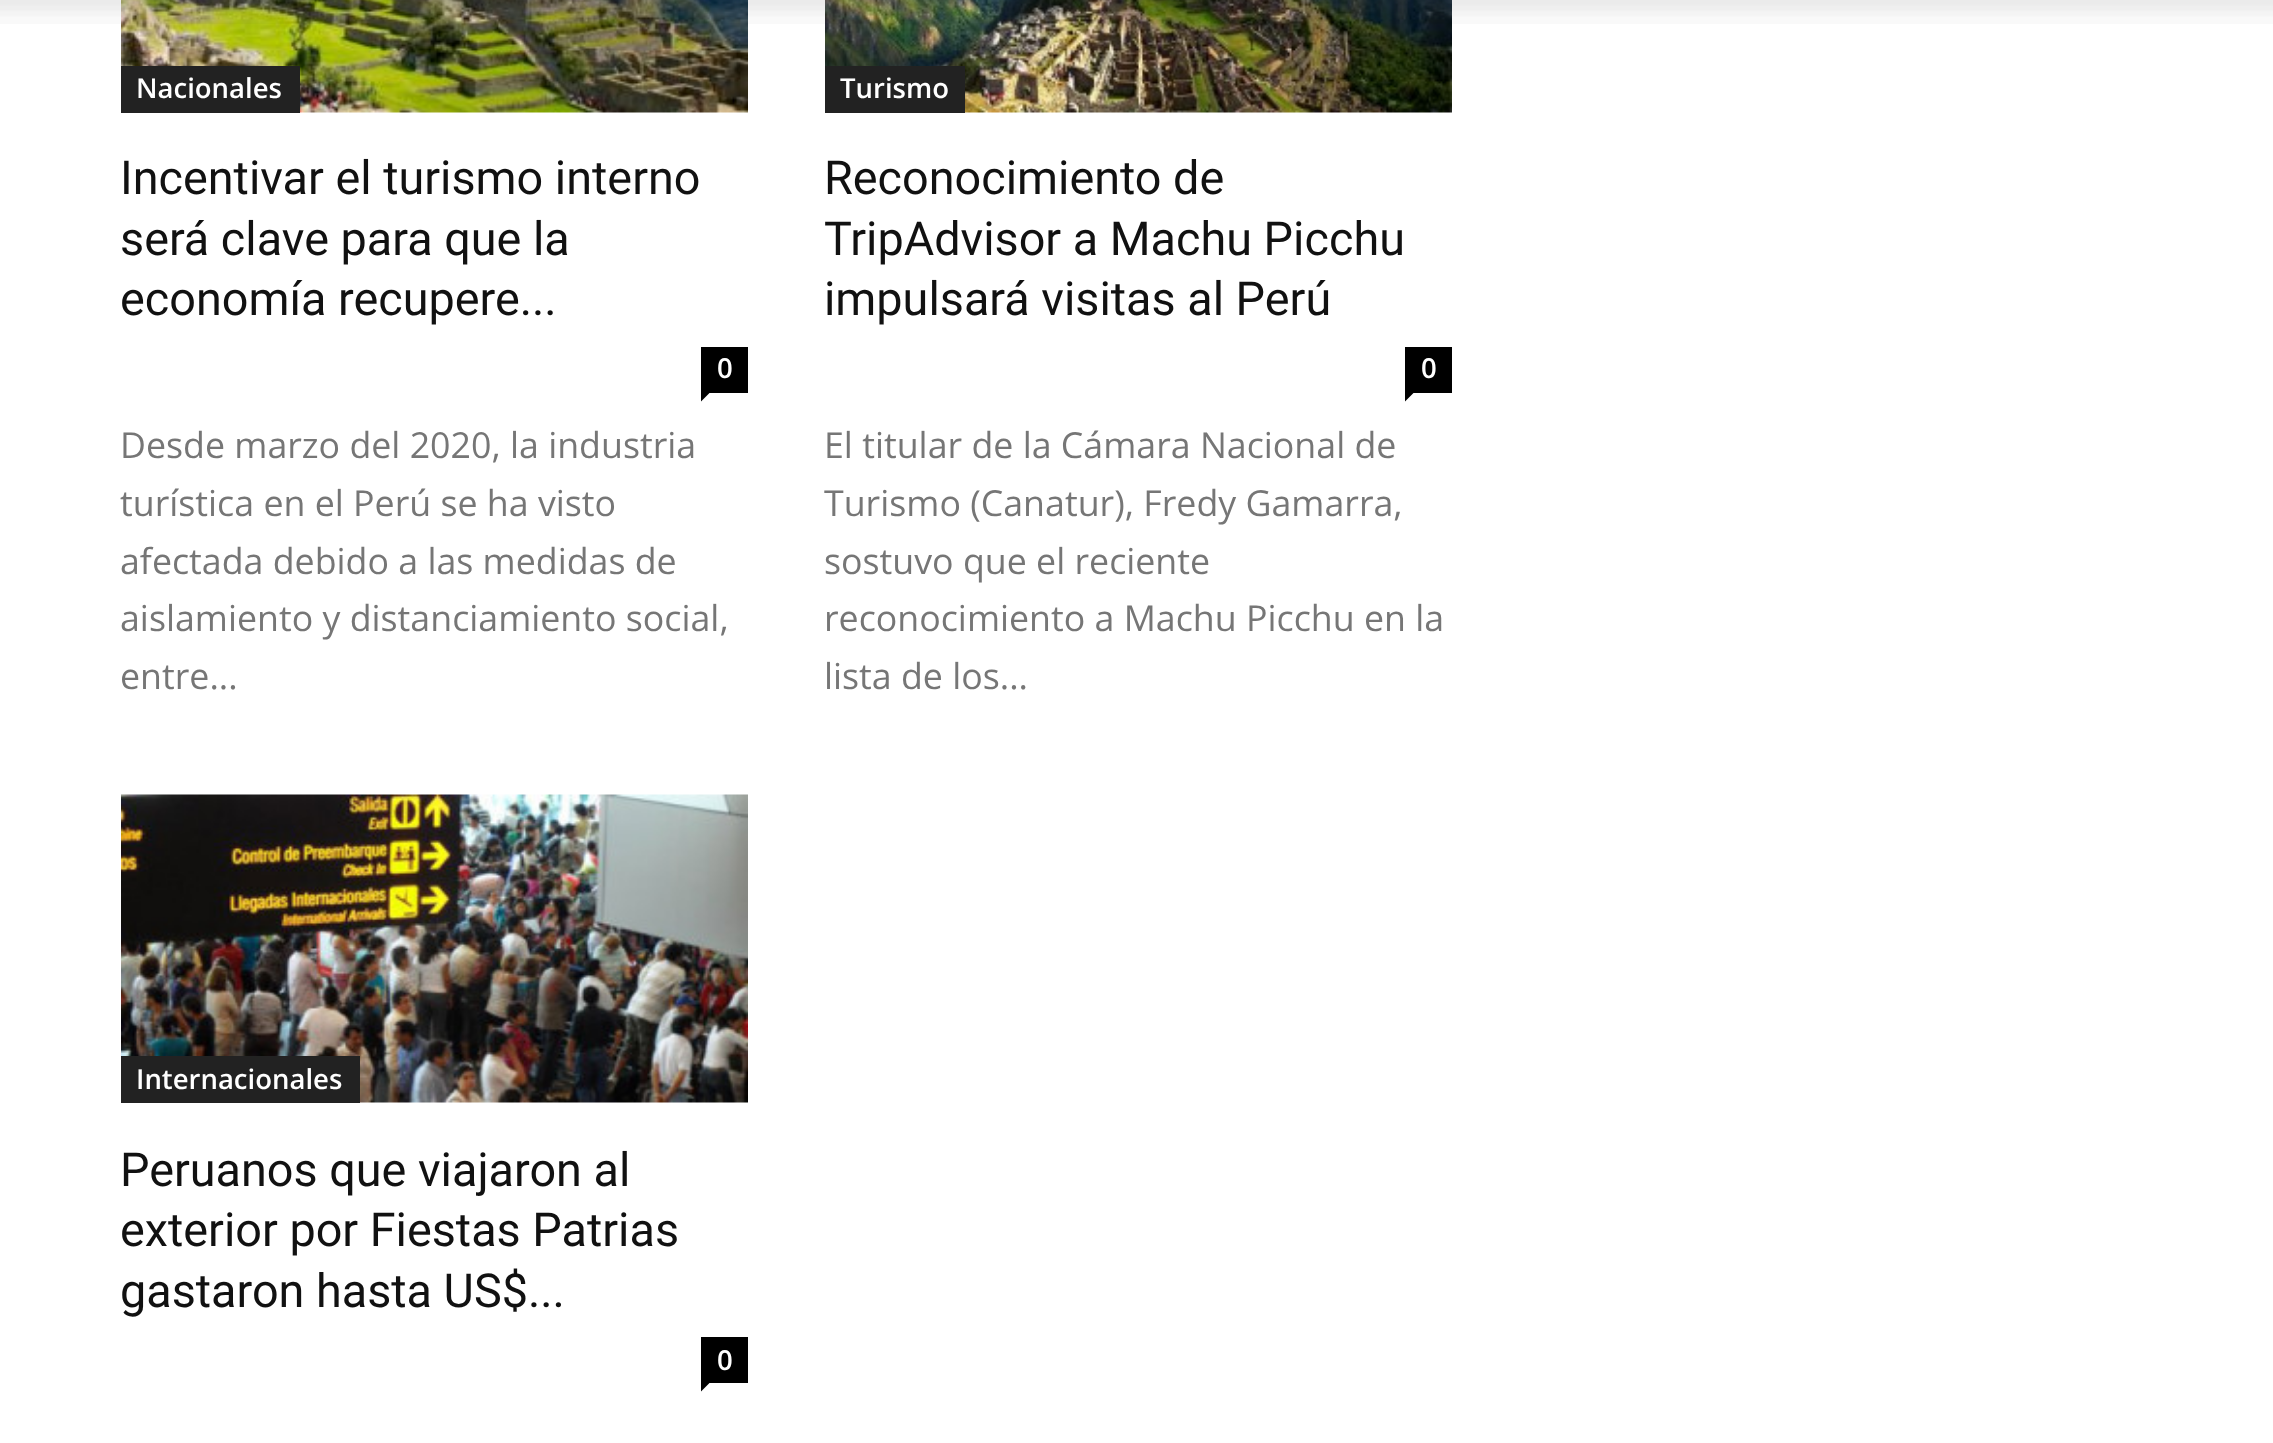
<svg xmlns="http://www.w3.org/2000/svg" width="2273" height="1443" viewBox="0 0 2273 1443">
  <rect width="100%" height="100%" fill="#fff"/>
  <image x="121" y="0" width="627" height="113" href="img/2.png"/>
  <image x="825" y="0" width="627" height="113" href="img/3.png"/>
  <image x="0" y="0" width="2273" height="24" href="img/1.png"/>
  <path d="M121 66h179v47H121z" fill="#222"/>
  <path d="M701 347h47v46H701z" fill="#000"/>
  <path d="M701 393H709.5L701 401.5Z" fill="#000"/>
  <path d="M825 66h140v47H825z" fill="#222"/>
  <path d="M1405 347h47v46H1405z" fill="#000"/>
  <path d="M1405 393H1413.5L1405 401.5Z" fill="#000"/>
  <image x="121" y="794" width="627" height="309" href="img/4.png"/>
  <path d="M121 1056h239v47H121z" fill="#222"/>
  <path d="M701 1337h47v46H701z" fill="#000"/>
  <path d="M701 1383H709.5L701 1391.5Z" fill="#000"/>
  <text x="136" y="98" font-family="Open Sans" font-size="27.5" font-weight="600" fill="#fff">Nacionales</text>
  <g font-family="Roboto" font-size="46.75" fill="#111">
    <text x="120" y="194">Incentivar el turismo interno</text>
    <text x="120" y="255">será clave para que la</text>
    <text x="120" y="315">economía recupere...</text>
  </g>
  <text x="717" y="378" font-family="Open Sans" font-size="27.5" font-weight="600" fill="#fff">0</text>
  <g font-family="Open Sans" font-size="35.75" fill="#767676">
    <text x="120" y="458">Desde marzo del 2020, la industria</text>
    <text x="120" y="516">turística en el Perú se ha visto</text>
    <text x="120" y="574">afectada debido a las medidas de</text>
    <text x="120" y="631">aislamiento y distanciamiento social,</text>
    <text x="120" y="689">entre...</text>
  </g>
  <text x="840" y="98" font-family="Open Sans" font-size="27.5" font-weight="600" fill="#fff">Turismo</text>
  <g font-family="Roboto" font-size="46.75" fill="#111">
    <text x="824" y="194">Reconocimiento de</text>
    <text x="824" y="255">TripAdvisor a Machu Picchu</text>
    <text x="824" y="315">impulsará visitas al Perú</text>
  </g>
  <text x="1421" y="378" font-family="Open Sans" font-size="27.5" font-weight="600" fill="#fff">0</text>
  <g font-family="Open Sans" font-size="35.75" fill="#767676">
    <text x="824" y="458">El titular de la Cámara Nacional de</text>
    <text x="824" y="516">Turismo (Canatur), Fredy Gamarra,</text>
    <text x="824" y="574">sostuvo que el reciente</text>
    <text x="824" y="631">reconocimiento a Machu Picchu en la</text>
    <text x="824" y="689">lista de los...</text>
  </g>
  <text x="136" y="1089" font-family="Open Sans" font-size="27.5" font-weight="600" fill="#fff">Internacionales</text>
  <g font-family="Roboto" font-size="46.75" fill="#111">
    <text x="120" y="1186">Peruanos que viajaron al</text>
    <text x="120" y="1246">exterior por Fiestas Patrias</text>
    <text x="120" y="1307">gastaron hasta US$...</text>
  </g>
  <text x="717" y="1370" font-family="Open Sans" font-size="27.5" font-weight="600" fill="#fff">0</text>
</svg>
